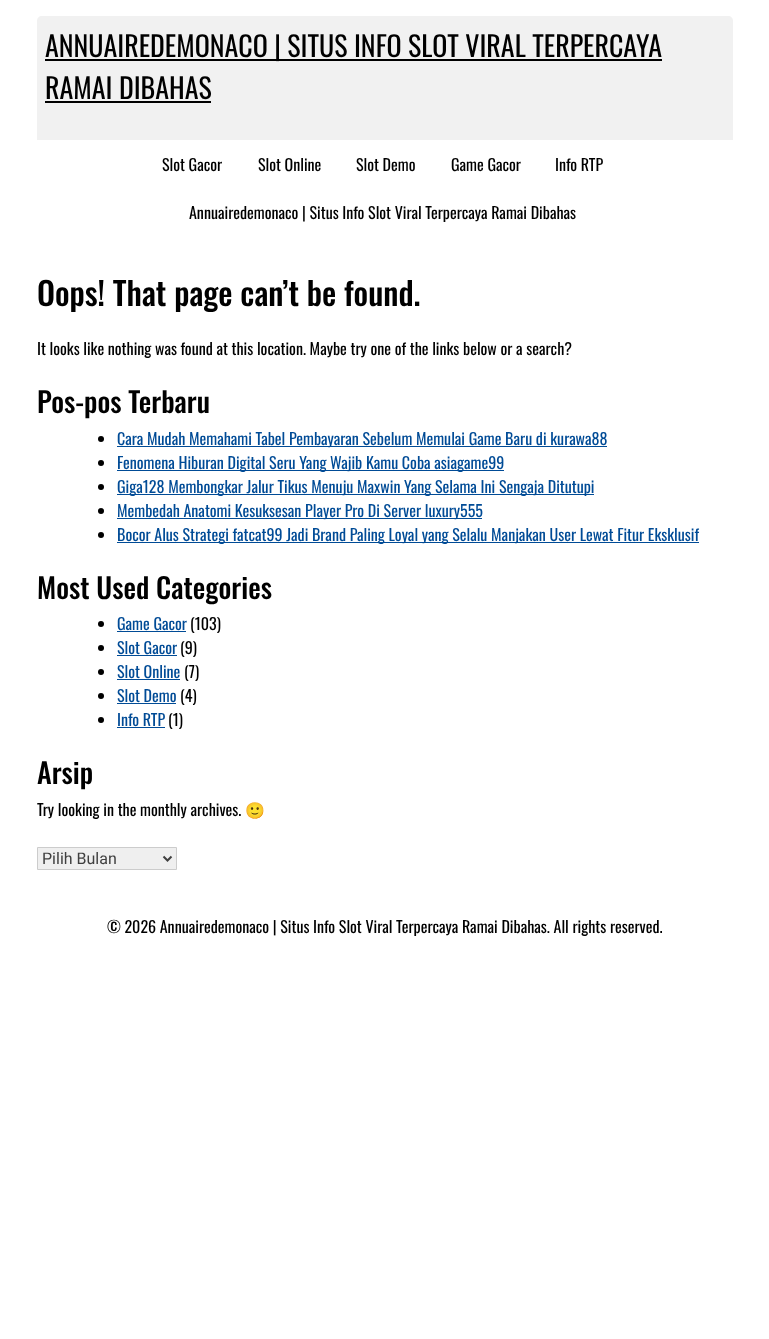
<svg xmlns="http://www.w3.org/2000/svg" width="769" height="1339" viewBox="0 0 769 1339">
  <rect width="100%" height="100%" fill="#fff"/>
  <path d="M42 16H728C731 16 733 18 733 21V140H37V21C37 18 39 16 42 16Z" fill="#f1f1f1"/>
  <path d="M45 59h617v2H45z" fill="#000"/>
  <path d="M45 101h166v2H45z" fill="#000"/>
  <circle cx="101" cy="439" r="3" fill="#000"/>
  <path d="M117 446h490v1H117z" fill="#004b96"/>
  <circle cx="101" cy="463" r="3" fill="#000"/>
  <path d="M117 470h387v1H117z" fill="#004b96"/>
  <circle cx="101" cy="487" r="3" fill="#000"/>
  <path d="M117 494h477v1H117z" fill="#004b96"/>
  <circle cx="101" cy="511" r="3" fill="#000"/>
  <path d="M117 518h365v1H117z" fill="#004b96"/>
  <circle cx="101" cy="535" r="3" fill="#000"/>
  <path d="M117 542h582v1H117z" fill="#004b96"/>
  <circle cx="101" cy="624" r="3" fill="#000"/>
  <path d="M117 631h69v1H117z" fill="#004b96"/>
  <circle cx="101" cy="648" r="3" fill="#000"/>
  <path d="M117 655h60v1H117z" fill="#004b96"/>
  <circle cx="101" cy="672" r="3" fill="#000"/>
  <path d="M117 679h63v1H117z" fill="#004b96"/>
  <circle cx="101" cy="696" r="3" fill="#000"/>
  <path d="M117 703h59v1H117z" fill="#004b96"/>
  <circle cx="101" cy="720" r="3" fill="#000"/>
  <path d="M117 727h48v1H117z" fill="#004b96"/>
  <path d="M37.5 847.5h139v22H37.5z" fill="#efefef" stroke="#ccc"/>
  <path d="M163.5 856.5L167.5 860.5L171.5 856.5" fill="none" stroke="#404040" stroke-width="2"/>
  <g font-family="Oswald" font-size="28" fill="#000">
    <text x="45" y="57">ANNUAIREDEMONACO | SITUS INFO SLOT VIRAL TERPERCAYA</text>
    <text x="45" y="99">RAMAI DIBAHAS</text>
  </g>
  <g font-family="Oswald" font-size="16" fill="#000">
    <text x="162" y="171">Slot Gacor</text>
    <text x="258" y="171">Slot Online</text>
    <text x="356" y="171">Slot Demo</text>
    <text x="451" y="171">Game Gacor</text>
    <text x="555" y="171">Info RTP</text>
    <text x="189" y="219">Annuairedemonaco | Situs Info Slot Viral Terpercaya Ramai Dibahas</text>
  </g>
  <text x="37" y="306" font-family="Oswald" font-size="32" font-weight="500" fill="#000">Oops! That page can’t be found.</text>
  <text x="37" y="355" font-family="Oswald" font-size="16" fill="#000">It looks like nothing was found at this location. Maybe try one of the links below or a search?</text>
  <text x="37" y="413" font-family="Oswald" font-size="28.1" font-weight="500" fill="#000">Pos-pos Terbaru</text>
  <g font-family="Oswald" font-size="16" fill="#004b96">
    <text x="117" y="445">Cara Mudah Memahami Tabel Pembayaran Sebelum Memulai Game Baru di kurawa88</text>
    <text x="117" y="469">Fenomena Hiburan Digital Seru Yang Wajib Kamu Coba asiagame99</text>
    <text x="117" y="493">Giga128 Membongkar Jalur Tikus Menuju Maxwin Yang Selama Ini Sengaja Ditutupi</text>
    <text x="117" y="517">Membedah Anatomi Kesuksesan Player Pro Di Server luxury555</text>
    <text x="117" y="541">Bocor Alus Strategi fatcat99 Jadi Brand Paling Loyal yang Selalu Manjakan User Lewat Fitur Eksklusif</text>
  </g>
  <text x="37" y="599" font-family="Oswald" font-size="28.1" font-weight="500" fill="#000">Most Used Categories</text>
  <text x="117" y="630" font-family="Oswald" font-size="16" fill="#004b96">Game Gacor</text>
  <text x="190" y="630" font-family="Oswald" font-size="16" fill="#000">(103)</text>
  <text x="117" y="654" font-family="Oswald" font-size="16" fill="#004b96">Slot Gacor</text>
  <text x="180" y="654" font-family="Oswald" font-size="16" fill="#000">(9)</text>
  <text x="117" y="678" font-family="Oswald" font-size="16" fill="#004b96">Slot Online</text>
  <text x="184" y="678" font-family="Oswald" font-size="16" fill="#000">(7)</text>
  <text x="117" y="702" font-family="Oswald" font-size="16" fill="#004b96">Slot Demo</text>
  <text x="180" y="702" font-family="Oswald" font-size="16" fill="#000">(4)</text>
  <text x="117" y="726" font-family="Oswald" font-size="16" fill="#004b96">Info RTP</text>
  <text x="168" y="726" font-family="Oswald" font-size="16" fill="#000">(1)</text>
  <text x="37" y="784" font-family="Oswald" font-size="28.1" font-weight="500" fill="#000">Arsip</text>
  <text x="37" y="816" font-family="Oswald" font-size="16" fill="#000">Try looking in the monthly archives.</text>
  <text x="245" y="816" font-family="Noto Color Emoji" font-size="16" fill="#000">🙂</text>
  <text x="42" y="864" font-family="Roboto" font-size="16" fill="#404040">Pilih Bulan</text>
  <text x="107" y="933" font-family="Oswald" font-size="16" fill="#000">© 2026 Annuairedemonaco | Situs Info Slot Viral Terpercaya Ramai Dibahas. All rights reserved.</text>
</svg>
